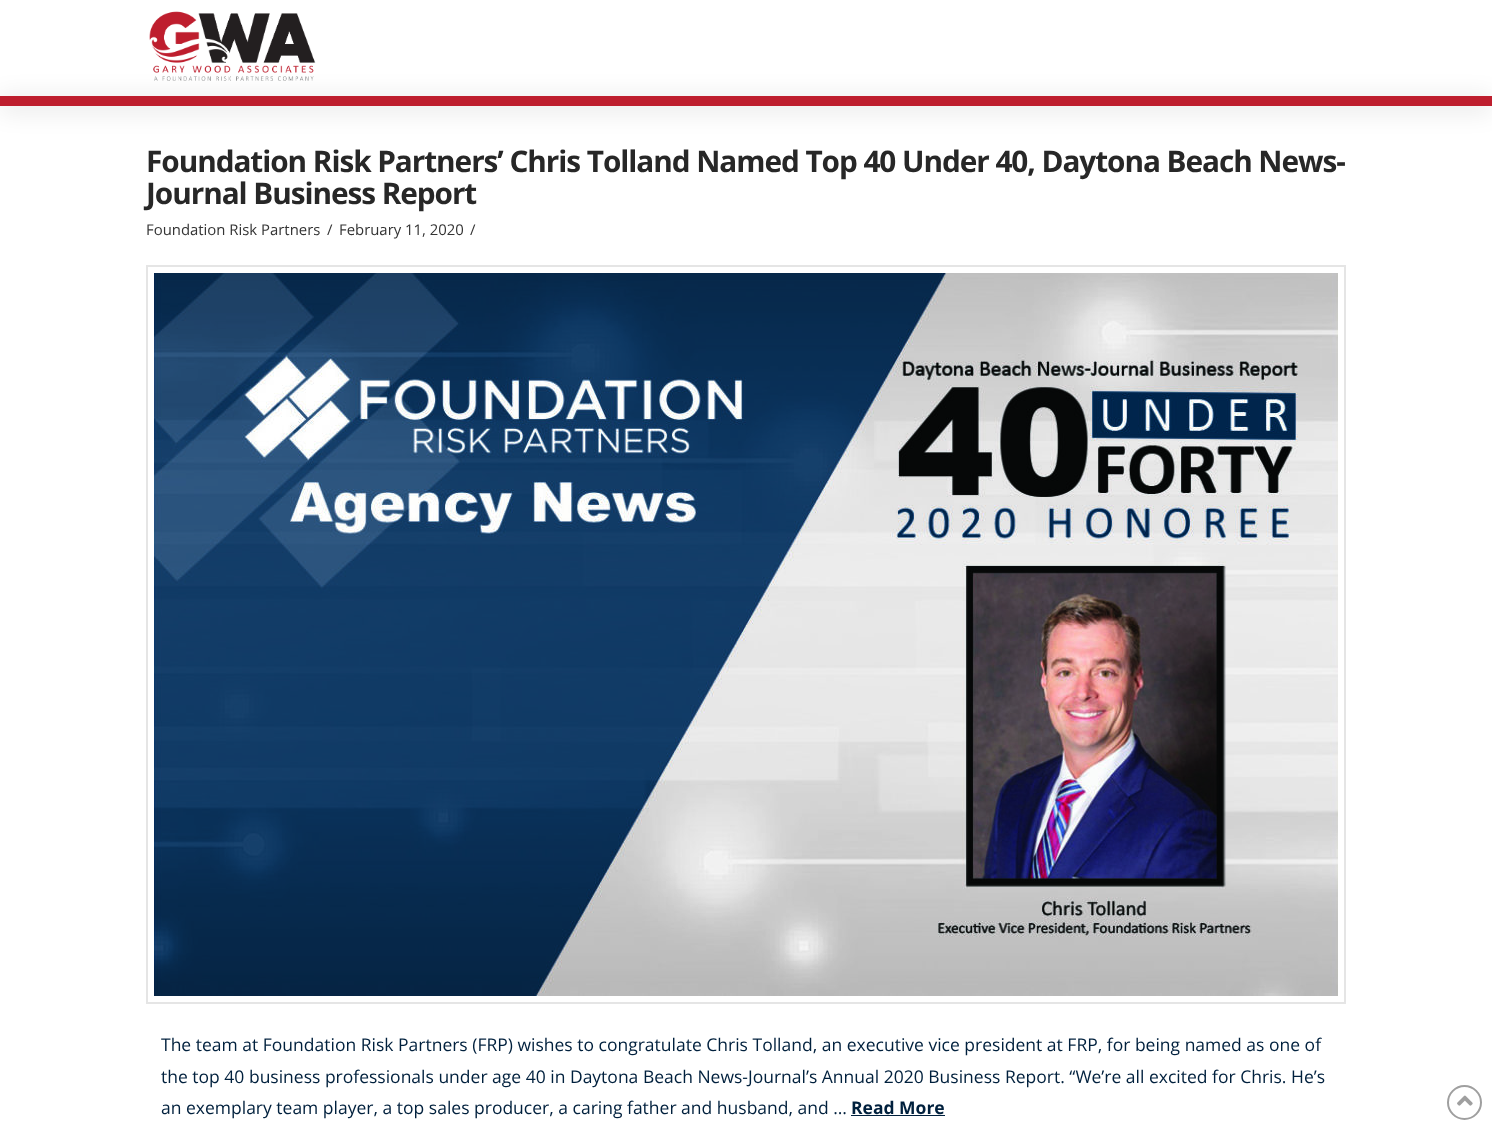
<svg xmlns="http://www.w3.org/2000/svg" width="1492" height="1130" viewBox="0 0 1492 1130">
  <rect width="100%" height="100%" fill="#fff"/>
  <image x="149" y="11" width="167" height="70" href="img/1.png"/>
  <path d="M0 99h1492v10H0z" fill="#00000026" filter="blur(12.5px)"/>
  <path d="M0 96h1492v10H0z" fill="#be1e2e"/>
  <path d="M147 266h1198v737H147z" fill="none" stroke="#e5e5e5" stroke-width="2"/>
  <image x="154" y="273" width="1184" height="723" href="img/2.png"/>
  <path d="M851 1115h94v1H851z" fill="#00203d"/>
  <circle cx="1464.5" cy="1102.5" r="16.5" fill="none" stroke="#9f9f9f" stroke-width="2"/>
  <image x="1457" y="1095" width="16" height="11" href="img/3.png"/>
  <g font-family="Open Sans" font-size="29.75" font-weight="bold" letter-spacing="-1.05" fill="#272727">
    <text x="146" y="172">Foundation Risk Partners’ Chris Tolland Named Top 40 Under 40, Daytona Beach News-</text>
    <text x="146" y="204">Journal Business Report</text>
  </g>
  <g font-family="Open Sans" font-size="14.9" fill="#343434">
    <text x="146" y="235">Foundation Risk Partners</text>
    <text x="327" y="235">/</text>
    <text x="339" y="235">February 11, 2020</text>
    <text x="470" y="235">/</text>
  </g>
  <g font-family="Open Sans" font-size="17.5" fill="#00203d">
    <text x="161" y="1051">The team at Foundation Risk Partners (FRP) wishes to congratulate Chris Tolland, an executive vice president at FRP, for being named as one of</text>
    <text x="161" y="1083">the top 40 business professionals under age 40 in Daytona Beach News-Journal’s Annual 2020 Business Report. “We’re all excited for Chris. He’s</text>
    <text x="161" y="1114">an exemplary team player, a top sales producer, a caring father and husband, and …</text>
  </g>
  <text x="851" y="1114" font-family="Open Sans" font-size="17.5" font-weight="bold" fill="#00203d">Read More</text>
</svg>
